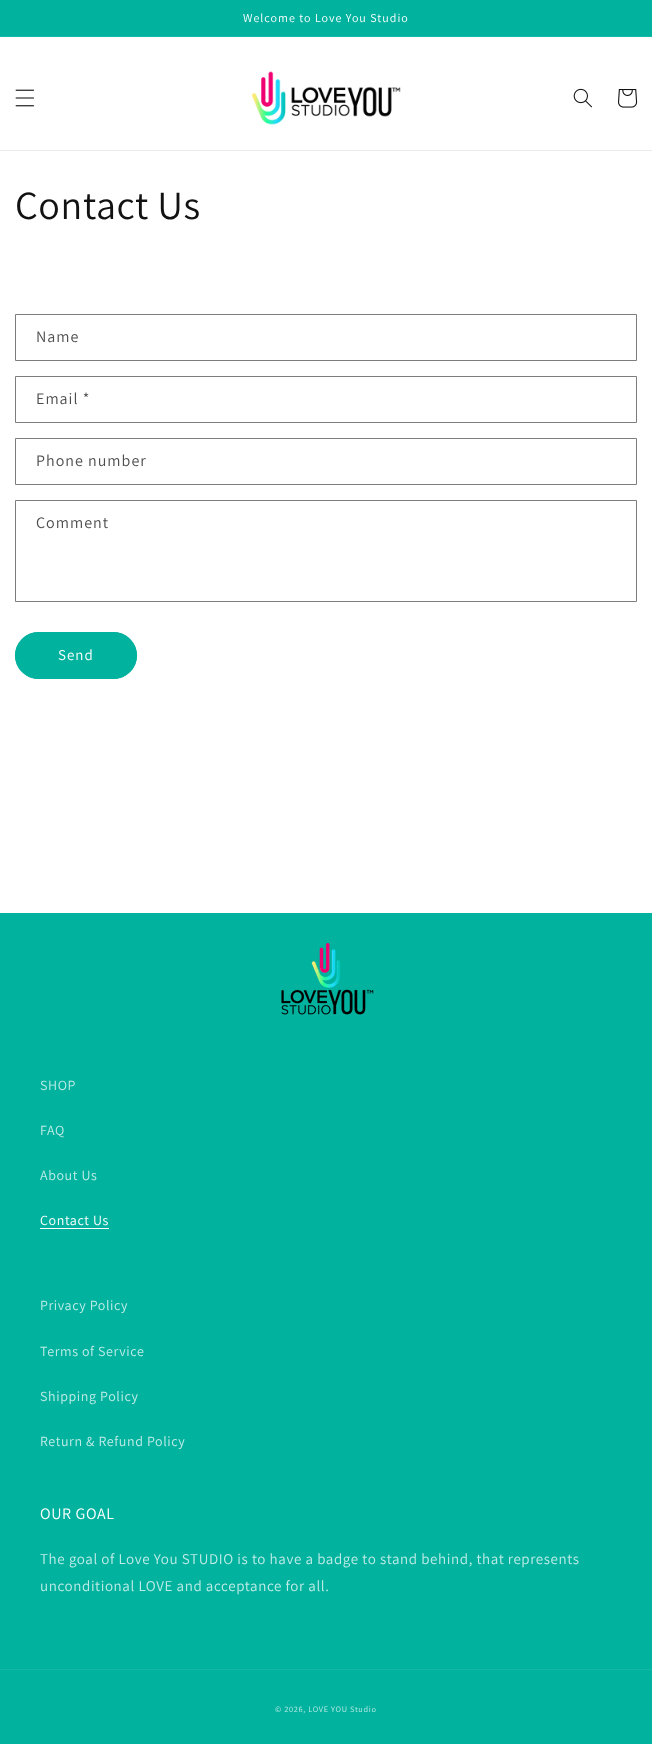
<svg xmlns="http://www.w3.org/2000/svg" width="652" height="1744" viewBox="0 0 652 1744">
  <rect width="100%" height="100%" fill="#fff"/>
  <path d="M0 0h652v36H0z" fill="#01b29e"/>
  <path d="M0 36h652v1H0z" fill="#15b8a6"/>
  <path d="M0 150h652v1H0z" fill="#ececec"/>
  <image x="15" y="89" width="20" height="18" href="img/1.png"/>
  <image x="251" y="71" width="150" height="54" href="img/2.png"/>
  <image x="573" y="88" width="19" height="20" href="img/3.png"/>
  <image x="618" y="89" width="20" height="19" href="img/4.png"/>
  <path d="M15.5 314.5h621v46H15.5z" fill="none" stroke="#7d7d7d"/>
  <path d="M15.5 376.5h621v46H15.5z" fill="none" stroke="#7d7d7d"/>
  <path d="M15.5 438.5h621v46H15.5z" fill="none" stroke="#7d7d7d"/>
  <path d="M15.5 500.5h621v101H15.5z" fill="none" stroke="#7d7d7d"/>
  <rect x="15" y="632" width="122" height="47" rx="23.5" fill="#01b29e"/>
  <rect x="15.5" y="632.5" width="121" height="46" rx="23" fill="none" stroke="#01b29e"/>
  <path d="M0 913h652v831H0z" fill="#01b29e"/>
  <image x="281" y="942" width="93" height="73" href="img/5.png"/>
  <path d="M40 1228h69v1H40z" fill="#fff"/>
  <path d="M0 1669h652v1H0z" fill="#15b8a6"/>
  <text x="243" y="22" font-family="Assistant" font-size="12" letter-spacing="1" fill="#fff">Welcome to Love You Studio</text>
  <text x="15" y="219" font-family="Assistant" font-size="40" letter-spacing="0.6" fill="#121212">Contact Us</text>
  <g font-family="Assistant" font-size="16" letter-spacing="1" fill="#4d4d4d">
    <text x="36" y="342">Name</text>
    <text x="36" y="404">Email *</text>
    <text x="36" y="466">Phone number</text>
    <text x="36" y="528">Comment</text>
  </g>
  <text x="58" y="660" font-family="Assistant" font-size="15" letter-spacing="1" fill="#fff">Send</text>
  <g font-family="Assistant" font-size="14" letter-spacing="0.6" fill="#c0ece7">
    <text x="40" y="1090">SHOP</text>
    <text x="40" y="1135">FAQ</text>
    <text x="40" y="1180">About Us</text>
  </g>
  <text x="40" y="1225" font-family="Assistant" font-size="14" letter-spacing="0.6" fill="#fff">Contact Us</text>
  <g font-family="Assistant" font-size="14" letter-spacing="0.6" fill="#c0ece7">
    <text x="40" y="1310">Privacy Policy</text>
    <text x="40" y="1356">Terms of Service</text>
    <text x="40" y="1401">Shipping Policy</text>
    <text x="40" y="1446">Return &amp; Refund Policy</text>
  </g>
  <text x="40" y="1519" font-family="Assistant" font-size="16" letter-spacing="0.6" fill="#fff">OUR GOAL</text>
  <g font-family="Assistant" font-size="15" letter-spacing="0.6" fill="#c0ece7">
    <text x="40" y="1564">The goal of Love You STUDIO is to have a badge to stand behind, that represents</text>
    <text x="40" y="1591">unconditional LOVE and acceptance for all.</text>
  </g>
  <text x="275" y="1712" font-family="Assistant" font-size="8.25" letter-spacing="0.7" fill="#c0ece7">© 2026, LOVE YOU Studio</text>
</svg>
